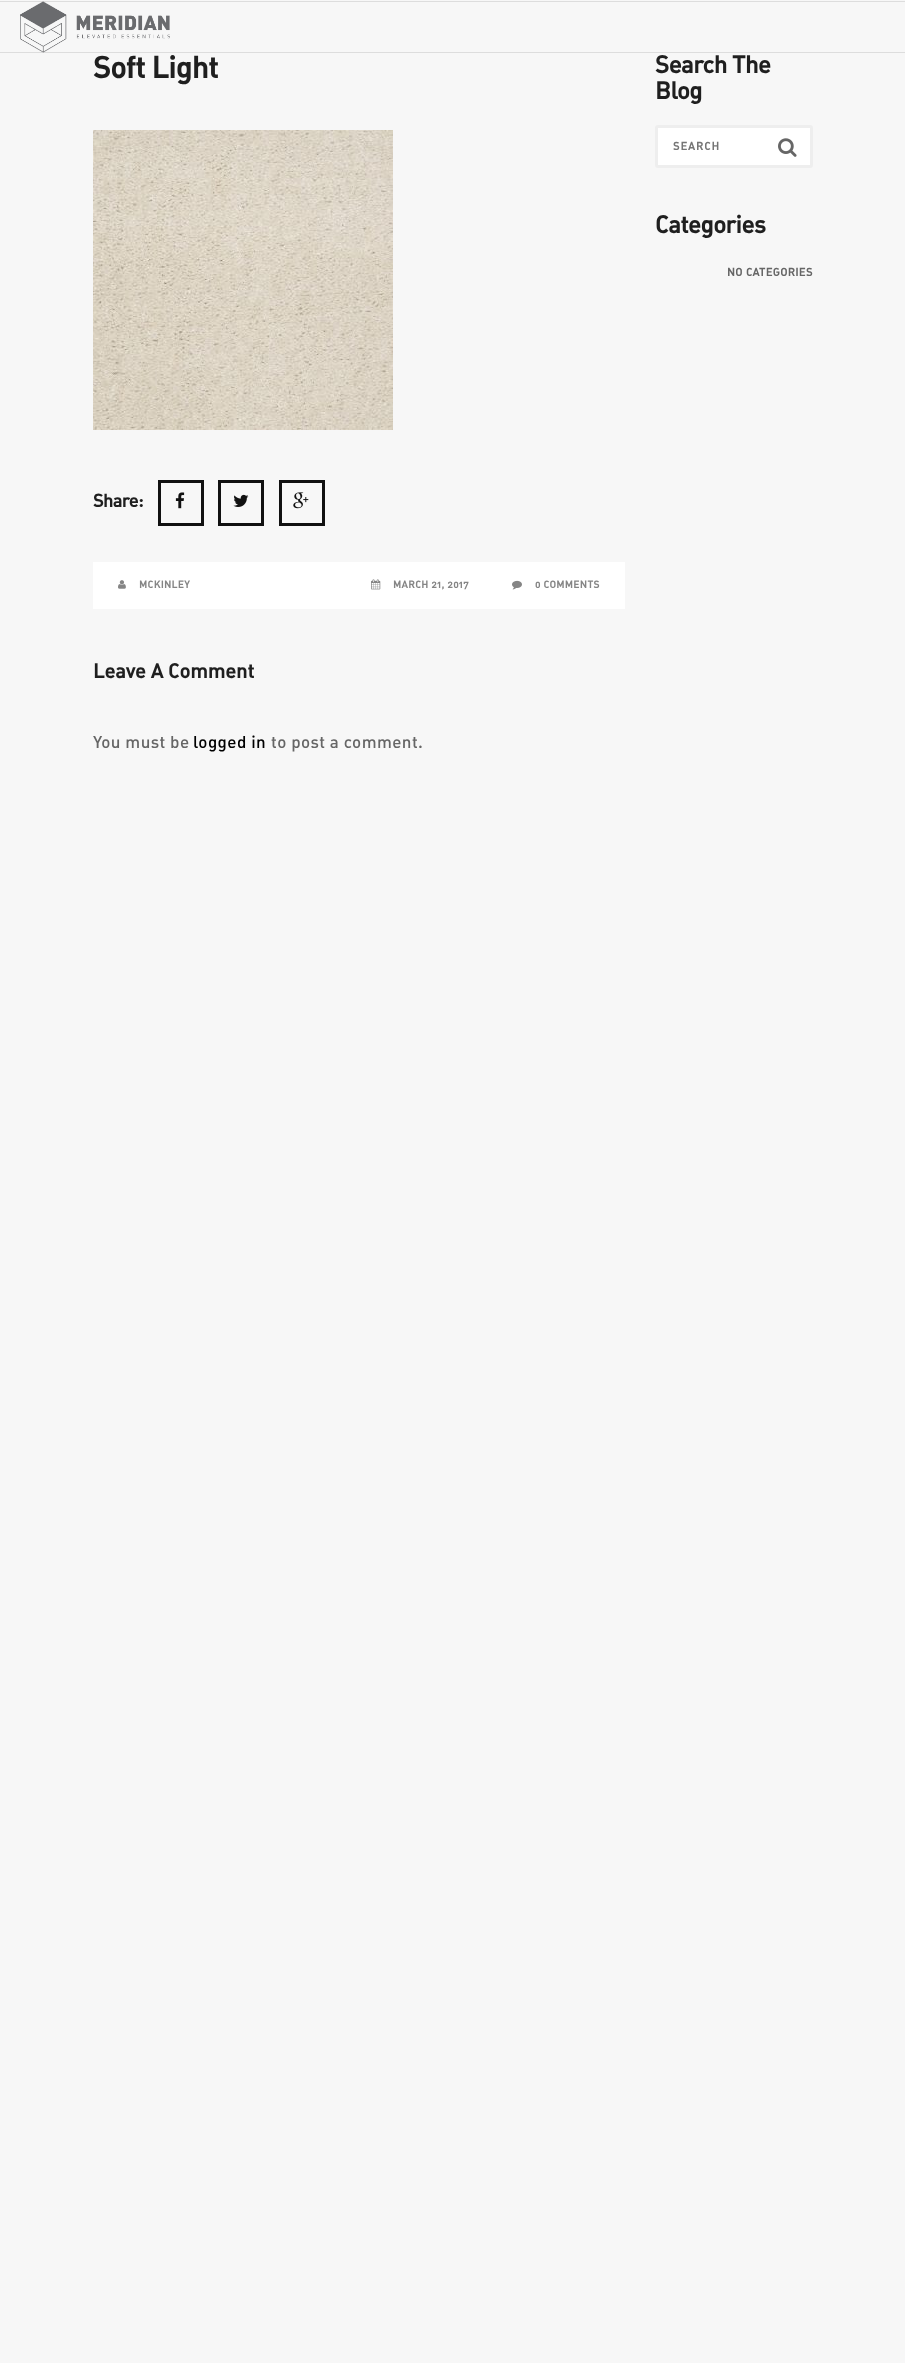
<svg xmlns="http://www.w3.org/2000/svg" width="905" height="2363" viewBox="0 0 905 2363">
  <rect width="100%" height="100%" fill="#f7f7f7"/>
  <path d="M0 1h905v1H0z" fill="#ddd"/>
  <path d="M0 52h905v1H0z" fill="#ddd"/>
  <image x="20" y="1" width="150" height="52" href="img/1.png"/>
  <image x="93" y="130" width="300" height="300" href="img/2.png"/>
  <path d="M159.5 481.5h43v43H159.5z" fill="none" stroke="#111" stroke-width="3"/>
  <image x="175" y="492" width="10" height="17" href="img/3.png"/>
  <path d="M219.5 481.5h43v43H219.5z" fill="none" stroke="#111" stroke-width="3"/>
  <image x="233" y="494" width="16" height="13" href="img/4.png"/>
  <path d="M280.5 481.5h43v43H280.5z" fill="none" stroke="#111" stroke-width="3"/>
  <image x="293" y="492" width="16" height="17" href="img/5.png"/>
  <path d="M93 562h532v47H93z" fill="#fff"/>
  <image x="118" y="580" width="8" height="9" href="img/6.png"/>
  <image x="371" y="579" width="10" height="11" href="img/7.png"/>
  <image x="512" y="580" width="10" height="10" href="img/8.png"/>
  <rect x="656.5" y="126.5" width="155" height="40" rx="1.5" fill="#fff" stroke="#eee" stroke-width="3"/>
  <image x="778" y="138" width="19" height="19" href="img/9.png"/>
  <text x="93" y="78" font-family="DIN" font-size="30" font-weight="bold" letter-spacing="-0.5" fill="#1f1f1f">Soft Light</text>
  <text x="93" y="507" font-family="DIN" font-size="18" font-weight="bold" letter-spacing="-0.5" fill="#1f1f1f">Share:</text>
  <g font-family="DIN" font-size="10" font-weight="bold" letter-spacing="0.4" fill="#858585">
    <text x="139" y="588">MCKINLEY</text>
    <text x="393" y="588">MARCH 21, 2017</text>
    <text x="535" y="588">0 COMMENTS</text>
  </g>
  <text x="93" y="678" font-family="DIN" font-size="20" font-weight="bold" fill="#1f1f1f">Leave A Comment</text>
  <text x="93" y="748" font-family="DIN" font-size="17" font-weight="500" letter-spacing="0.4" fill="#666">You must be</text>
  <text x="193" y="748" font-family="DIN" font-size="17" font-weight="500" letter-spacing="0.4" fill="#000">logged in</text>
  <text x="271" y="748" font-family="DIN" font-size="17" font-weight="500" letter-spacing="0.4" fill="#666">to post a comment.</text>
  <g font-family="DIN" font-size="24" font-weight="bold" letter-spacing="-0.5" fill="#1f1f1f">
    <text x="655" y="73">Search The</text>
    <text x="655" y="99">Blog</text>
  </g>
  <text x="673" y="150" font-family="DIN" font-size="11" font-weight="bold" letter-spacing="1" fill="#757575">SEARCH</text>
  <text x="655" y="233" font-family="DIN" font-size="24" font-weight="bold" letter-spacing="-0.5" fill="#1f1f1f">Categories</text>
  <text x="727" y="276" font-family="DIN" font-size="11" font-weight="bold" letter-spacing="0.4" fill="#666">NO CATEGORIES</text>
</svg>
